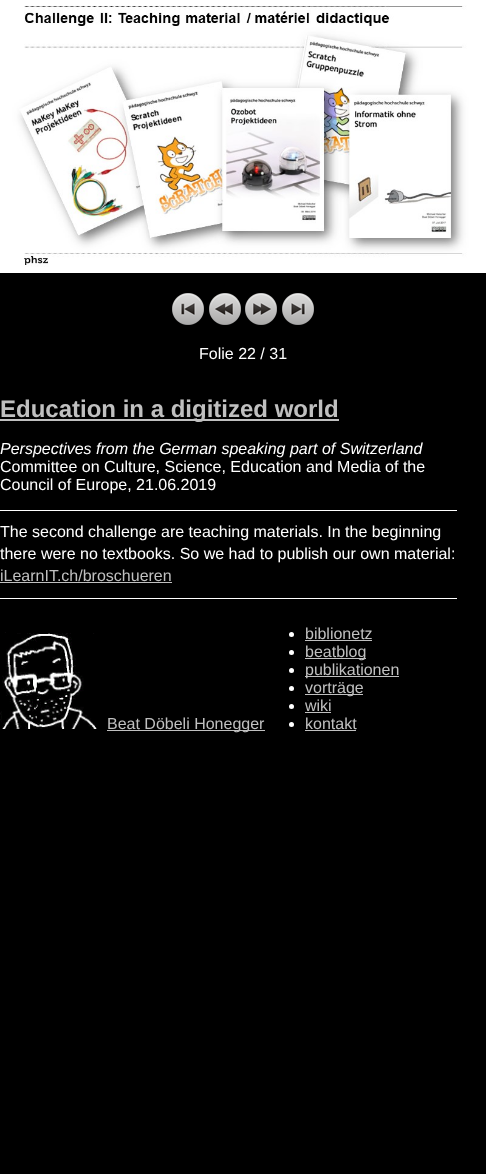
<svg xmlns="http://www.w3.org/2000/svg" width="486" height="1174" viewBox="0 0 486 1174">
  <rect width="100%" height="100%" fill="#000"/>
  <image x="0" y="0" width="486" height="273" href="img/1.png"/>
  <image x="172" y="293" width="32" height="32" href="img/2.png"/>
  <image x="209" y="293" width="32" height="32" href="img/3.png"/>
  <image x="245" y="293" width="32" height="32" href="img/4.png"/>
  <image x="282" y="293" width="32" height="32" href="img/5.png"/>
  <path d="M0 419h339v2H0z" fill="#c0c0c0"/>
  <path d="M0 510h457v1H0z" fill="#fff"/>
  <path d="M0 582h172v1H0z" fill="#c0c0c0"/>
  <path d="M0 598h457v1H0z" fill="#fff"/>
  <image x="0" y="632" width="97" height="97" href="img/6.png"/>
  <path d="M107 730h158v1H107z" fill="#c0c0c0"/>
  <circle cx="291.5" cy="634.5" r="2.5" fill="#fff"/>
  <path d="M305 640h67v1H305z" fill="#c0c0c0"/>
  <circle cx="291.5" cy="652.5" r="2.5" fill="#fff"/>
  <path d="M305 658h61v1H305z" fill="#c0c0c0"/>
  <circle cx="291.5" cy="670.5" r="2.5" fill="#fff"/>
  <path d="M305 676h94v1H305z" fill="#c0c0c0"/>
  <circle cx="291.5" cy="688.5" r="2.5" fill="#fff"/>
  <path d="M305 694h58v1H305z" fill="#c0c0c0"/>
  <circle cx="291.5" cy="706.5" r="2.5" fill="#fff"/>
  <path d="M305 712h26v1H305z" fill="#c0c0c0"/>
  <circle cx="291.5" cy="724.5" r="2.5" fill="#fff"/>
  <path d="M305 730h51v1H305z" fill="#c0c0c0"/>
  <text x="199" y="359" font-family="Liberation Sans" font-size="16" fill="#fff">Folie 22 / 31</text>
  <text x="0" y="417" font-family="Liberation Sans" font-size="24" font-weight="bold" fill="#c0c0c0">Education in a digitized world</text>
  <text x="0" y="454" font-family="Liberation Sans" font-size="16" font-style="italic" fill="#fff">Perspectives from the German speaking part of Switzerland</text>
  <g font-family="Liberation Sans" font-size="16" fill="#fff">
    <text x="0" y="472">Committee on Culture, Science, Education and Media of the</text>
    <text x="0" y="490">Council of Europe, 21.06.2019</text>
    <text x="0" y="537">The second challenge are teaching materials. In the beginning</text>
    <text x="0" y="559">there were no textbooks. So we had to publish our own material:</text>
  </g>
  <g font-family="Liberation Sans" font-size="16" fill="#c0c0c0">
    <text x="0" y="581">iLearnIT.ch/broschueren</text>
    <text x="107" y="729">Beat Döbeli Honegger</text>
    <text x="305" y="639">biblionetz</text>
    <text x="305" y="657">beatblog</text>
    <text x="305" y="675">publikationen</text>
    <text x="305" y="693">vorträge</text>
    <text x="305" y="711">wiki</text>
    <text x="305" y="729">kontakt</text>
  </g>
</svg>
